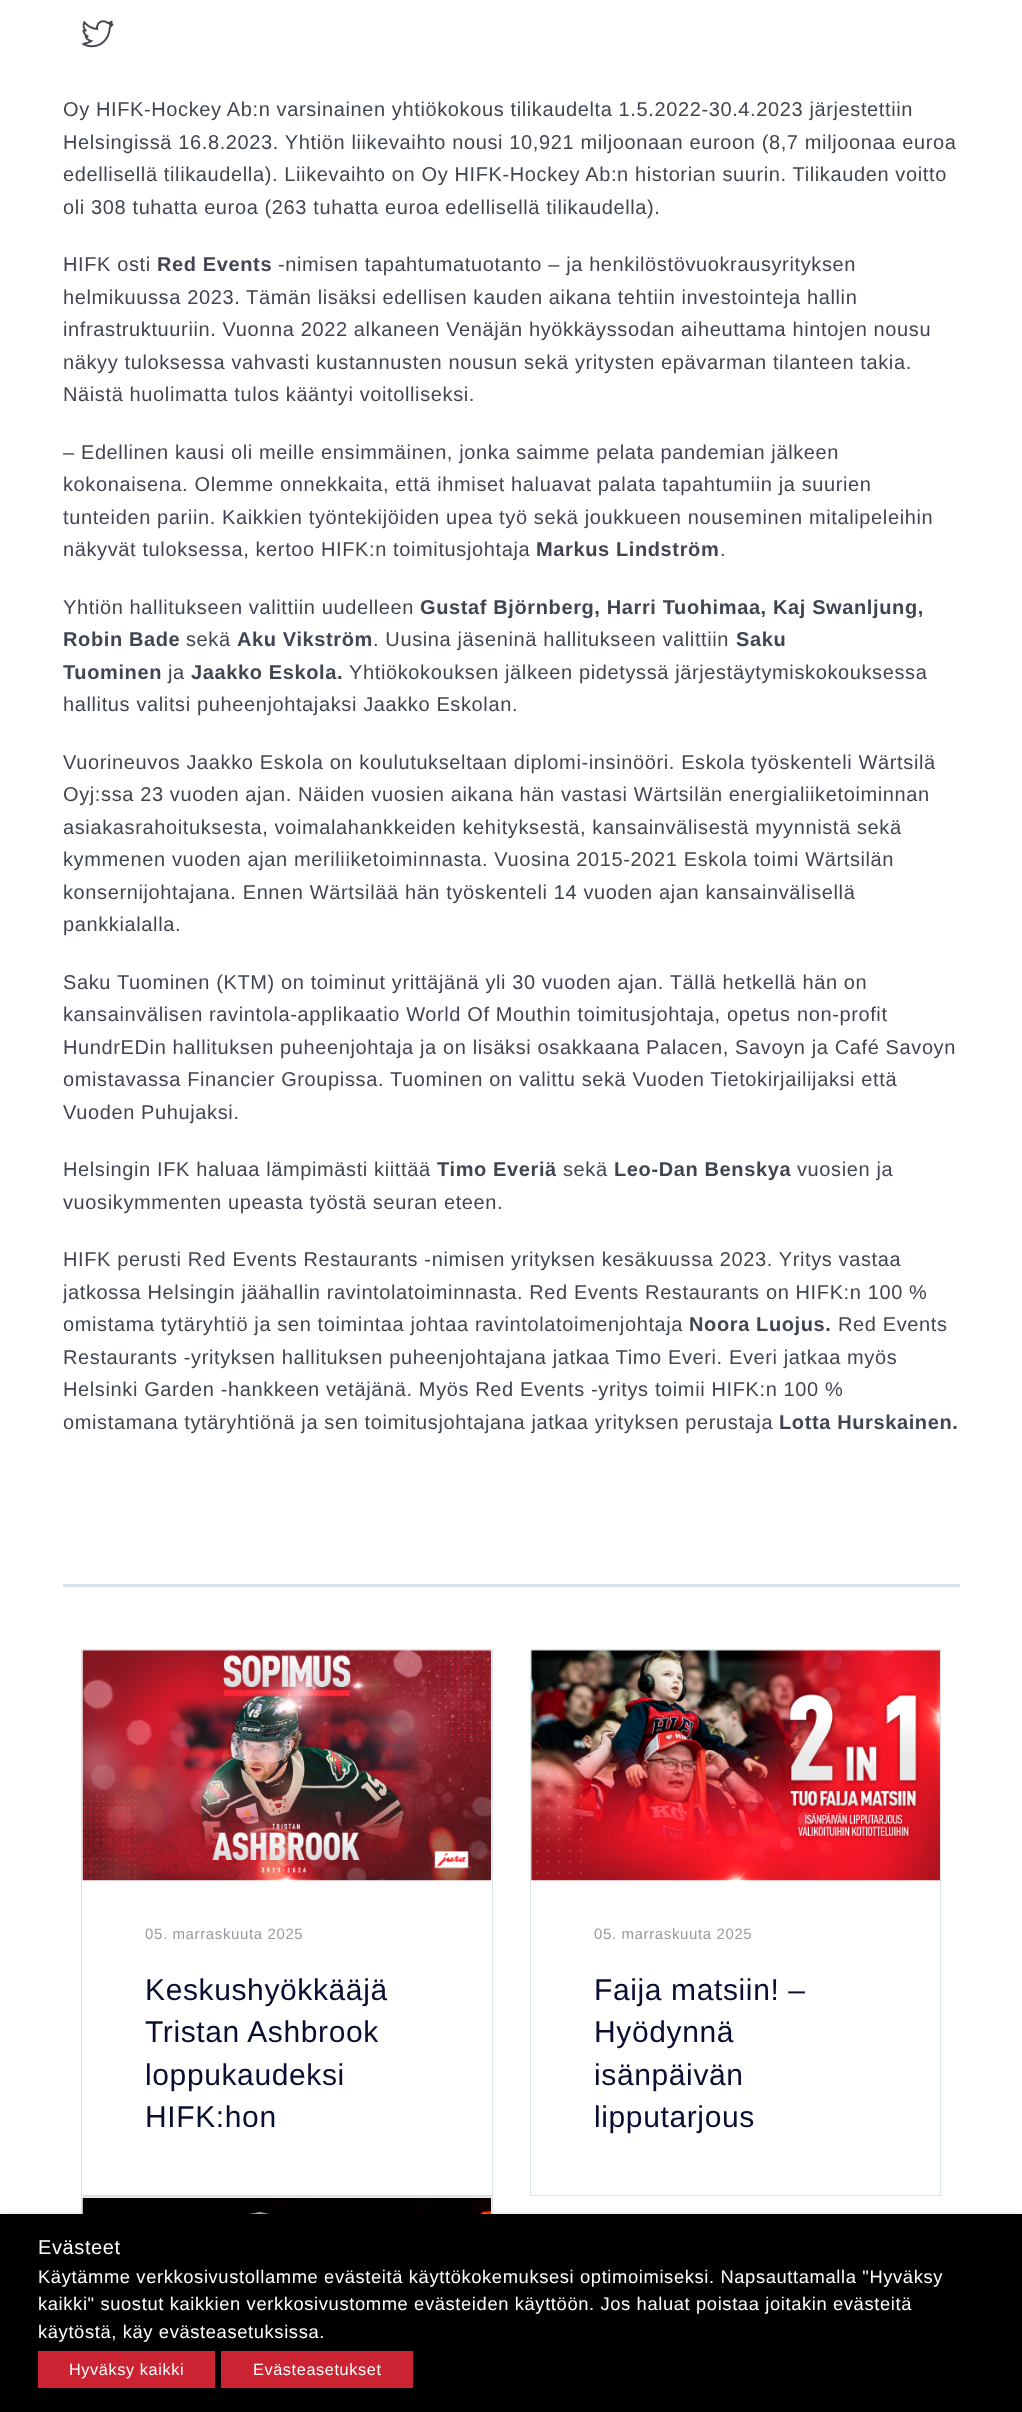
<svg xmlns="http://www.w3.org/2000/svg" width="1022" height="2412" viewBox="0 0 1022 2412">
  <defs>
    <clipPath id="clip1"><path d="M63 0h897v1584H63z"/></clipPath>
  </defs>
  <rect width="100%" height="100%" fill="#fff"/>
  <path d="M63 1584h897v3H63z" fill="#dbe3e6"/>
  <image x="81" y="20" width="33" height="28" href="img/1.png"/>
  <path d="M81.5 1649.5h411v546H81.5z" fill="none" stroke="#dbe3e6"/>
  <image x="82" y="1650" width="410" height="231" href="img/2.png"/>
  <path d="M530.5 1649.5h410v546H530.5z" fill="none" stroke="#dbe3e6"/>
  <image x="531" y="1650" width="409" height="231" href="img/3.png"/>
  <path d="M81.5 2196.5h411v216H81.5z" fill="none" stroke="#dbe3e6"/>
  <image x="82" y="2197" width="410" height="17" href="img/4.png"/>
  <path d="M0 2220h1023v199H0z" fill="#00000080" filter="blur(6px)"/>
  <path d="M0 2214h1022v198H0z" fill="#000"/>
  <path d="M38 2351h177v37H38z" fill="#cc2333"/>
  <path d="M221 2351h192v37H221z" fill="#cc2333"/>
  <g font-family="Liberation Sans" font-size="20" letter-spacing="0.62" fill="#404551">
    <text x="63" y="116">Oy HIFK-Hockey Ab:n varsinainen yhtiökokous tilikaudelta 1.5.2022-30.4.2023 järjestettiin</text>
    <text x="63" y="149">Helsingissä 16.8.2023. Yhtiön liikevaihto nousi 10,921 miljoonaan euroon (8,7 miljoonaa euroa</text>
    <text x="63" y="181">edellisellä tilikaudella). Liikevaihto on Oy HIFK-Hockey Ab:n historian suurin. Tilikauden voitto</text>
    <text x="63" y="214">oli 308 tuhatta euroa (263 tuhatta euroa edellisellä tilikaudella).</text>
    <text x="63" y="271">HIFK osti</text>
  </g>
  <text x="157" y="271" font-family="Liberation Sans" font-size="20" font-weight="bold" letter-spacing="0.62" fill="#404551">Red Events</text>
  <g font-family="Liberation Sans" font-size="20" letter-spacing="0.62" fill="#404551">
    <text x="278" y="271">-nimisen tapahtumatuotanto – ja henkilöstövuokrausyrityksen</text>
    <text x="63" y="304">helmikuussa 2023. Tämän lisäksi edellisen kauden aikana tehtiin investointeja hallin</text>
    <text x="63" y="336">infrastruktuuriin. Vuonna 2022 alkaneen Venäjän hyökkäyssodan aiheuttama hintojen nousu</text>
    <text x="63" y="369">näkyy tuloksessa vahvasti kustannusten nousun sekä yritysten epävarman tilanteen takia.</text>
    <text x="63" y="401">Näistä huolimatta tulos kääntyi voitolliseksi.</text>
    <text x="63" y="459">– Edellinen kausi oli meille ensimmäinen, jonka saimme pelata pandemian jälkeen</text>
    <text x="63" y="491">kokonaisena. Olemme onnekkaita, että ihmiset haluavat palata tapahtumiin ja suurien</text>
    <text x="63" y="524">tunteiden pariin. Kaikkien työntekijöiden upea työ sekä joukkueen nouseminen mitalipeleihin</text>
    <text x="63" y="556">näkyvät tuloksessa, kertoo HIFK:n toimitusjohtaja</text>
  </g>
  <text x="536" y="556" font-family="Liberation Sans" font-size="20" font-weight="bold" letter-spacing="0.62" fill="#404551">Markus Lindström</text>
  <g font-family="Liberation Sans" font-size="20" letter-spacing="0.62" fill="#404551">
    <text x="720" y="556">.</text>
    <text x="63" y="614">Yhtiön hallitukseen valittiin uudelleen</text>
  </g>
  <g font-family="Liberation Sans" font-size="20" font-weight="bold" letter-spacing="0.62" fill="#404551">
    <text x="420" y="614">Gustaf Björnberg, Harri Tuohimaa, Kaj Swanljung,</text>
    <text x="63" y="646">Robin Bade</text>
  </g>
  <text x="186" y="646" font-family="Liberation Sans" font-size="20" letter-spacing="0.62" fill="#404551">sekä</text>
  <text x="237" y="646" font-family="Liberation Sans" font-size="20" font-weight="bold" letter-spacing="0.62" fill="#404551">Aku Vikström</text>
  <text x="373" y="646" font-family="Liberation Sans" font-size="20" letter-spacing="0.62" fill="#404551">. Uusina jäseninä hallitukseen valittiin</text>
  <text x="736" y="646" font-family="Liberation Sans" font-size="20" font-weight="bold" letter-spacing="0.62" fill="#404551">Saku</text>
  <g clip-path="url(#clip1)">
    <text x="63" y="679" font-family="Liberation Sans" font-size="20" font-weight="bold" letter-spacing="0.62" fill="#404551">Tuominen</text>
  </g>
  <text x="168" y="679" font-family="Liberation Sans" font-size="20" letter-spacing="0.62" fill="#404551">ja</text>
  <text x="191" y="679" font-family="Liberation Sans" font-size="20" font-weight="bold" letter-spacing="0.62" fill="#404551">Jaakko Eskola.</text>
  <g font-family="Liberation Sans" font-size="20" letter-spacing="0.62" fill="#404551">
    <text x="349" y="679">Yhtiökokouksen jälkeen pidetyssä järjestäytymiskokouksessa</text>
    <text x="63" y="711">hallitus valitsi puheenjohtajaksi Jaakko Eskolan.</text>
    <text x="63" y="769">Vuorineuvos Jaakko Eskola on koulutukseltaan diplomi-insinööri. Eskola työskenteli Wärtsilä</text>
    <text x="63" y="801">Oyj:ssa 23 vuoden ajan. Näiden vuosien aikana hän vastasi Wärtsilän energialiiketoiminnan</text>
    <text x="63" y="834">asiakasrahoituksesta, voimalahankkeiden kehityksestä, kansainvälisestä myynnistä sekä</text>
    <text x="63" y="866">kymmenen vuoden ajan meriliiketoiminnasta. Vuosina 2015-2021 Eskola toimi Wärtsilän</text>
    <text x="63" y="899">konsernijohtajana. Ennen Wärtsilää hän työskenteli 14 vuoden ajan kansainvälisellä</text>
    <text x="63" y="931">pankkialalla.</text>
    <text x="63" y="989">Saku Tuominen (KTM) on toiminut yrittäjänä yli 30 vuoden ajan. Tällä hetkellä hän on</text>
    <text x="63" y="1021">kansainvälisen ravintola-applikaatio World Of Mouthin toimitusjohtaja, opetus non-profit</text>
    <text x="63" y="1054">HundrEDin hallituksen puheenjohtaja ja on lisäksi osakkaana Palacen, Savoyn ja Café Savoyn</text>
    <text x="63" y="1086">omistavassa Financier Groupissa. Tuominen on valittu sekä Vuoden Tietokirjailijaksi että</text>
    <text x="63" y="1119">Vuoden Puhujaksi.</text>
    <text x="63" y="1176">Helsingin IFK haluaa lämpimästi kiittää</text>
  </g>
  <text x="437" y="1176" font-family="Liberation Sans" font-size="20" font-weight="bold" letter-spacing="0.62" fill="#404551">Timo Everiä</text>
  <text x="563" y="1176" font-family="Liberation Sans" font-size="20" letter-spacing="0.62" fill="#404551">sekä</text>
  <text x="614" y="1176" font-family="Liberation Sans" font-size="20" font-weight="bold" letter-spacing="0.62" fill="#404551">Leo-Dan Benskya</text>
  <g font-family="Liberation Sans" font-size="20" letter-spacing="0.62" fill="#404551">
    <text x="797" y="1176">vuosien ja</text>
    <text x="63" y="1209">vuosikymmenten upeasta työstä seuran eteen.</text>
    <text x="63" y="1266">HIFK perusti Red Events Restaurants -nimisen yrityksen kesäkuussa 2023. Yritys vastaa</text>
  </g>
  <g clip-path="url(#clip1)">
    <text x="63" y="1299" font-family="Liberation Sans" font-size="20" letter-spacing="0.62" fill="#404551">jatkossa Helsingin jäähallin ravintolatoiminnasta. Red Events Restaurants on HIFK:n 100 %</text>
  </g>
  <text x="63" y="1331" font-family="Liberation Sans" font-size="20" letter-spacing="0.62" fill="#404551">omistama tytäryhtiö ja sen toimintaa johtaa ravintolatoimenjohtaja</text>
  <text x="689" y="1331" font-family="Liberation Sans" font-size="20" font-weight="bold" letter-spacing="0.62" fill="#404551">Noora Luojus.</text>
  <g font-family="Liberation Sans" font-size="20" letter-spacing="0.62" fill="#404551">
    <text x="838" y="1331">Red Events</text>
    <text x="63" y="1364">Restaurants -yrityksen hallituksen puheenjohtajana jatkaa Timo Everi. Everi jatkaa myös</text>
    <text x="63" y="1396">Helsinki Garden -hankkeen vetäjänä. Myös Red Events -yritys toimii HIFK:n 100 %</text>
    <text x="63" y="1429">omistamana tytäryhtiönä ja sen toimitusjohtajana jatkaa yrityksen perustaja</text>
  </g>
  <text x="779" y="1429" font-family="Liberation Sans" font-size="20" font-weight="bold" letter-spacing="0.62" fill="#404551">Lotta Hurskainen.</text>
  <text x="145" y="1939" font-family="Liberation Sans" font-size="15" letter-spacing="0.62" fill="#989aa1">05. marraskuuta 2025</text>
  <g font-family="Liberation Sans" font-size="30" letter-spacing="0.62" fill="#0a0d32">
    <text x="145" y="2000">Keskushyökkääjä</text>
    <text x="145" y="2042">Tristan Ashbrook</text>
    <text x="145" y="2085">loppukaudeksi</text>
    <text x="145" y="2127">HIFK:hon</text>
  </g>
  <text x="594" y="1939" font-family="Liberation Sans" font-size="15" letter-spacing="0.62" fill="#989aa1">05. marraskuuta 2025</text>
  <g font-family="Liberation Sans" font-size="30" letter-spacing="0.62" fill="#0a0d32">
    <text x="594" y="2000">Faija matsiin! –</text>
    <text x="594" y="2042">Hyödynnä</text>
    <text x="594" y="2085">isänpäivän</text>
    <text x="594" y="2127">lipputarjous</text>
  </g>
  <text x="38" y="2254" font-family="Liberation Sans" font-size="20" letter-spacing="0.62" fill="#fff">Evästeet</text>
  <g font-family="Liberation Sans" font-size="18.35" letter-spacing="0.62" fill="#fff">
    <text x="38" y="2283">Käytämme verkkosivustollamme evästeitä käyttökokemuksesi optimoimiseksi. Napsauttamalla "Hyväksy</text>
    <text x="38" y="2310">kaikki" suostut kaikkien verkkosivustomme evästeiden käyttöön. Jos haluat poistaa joitakin evästeitä</text>
    <text x="38" y="2338">käytöstä, käy evästeasetuksissa.</text>
  </g>
  <g font-family="Liberation Sans" font-size="16.25" letter-spacing="0.62" fill="#fff">
    <text x="69" y="2375">Hyväksy kaikki</text>
    <text x="253" y="2375">Evästeasetukset</text>
  </g>
</svg>
